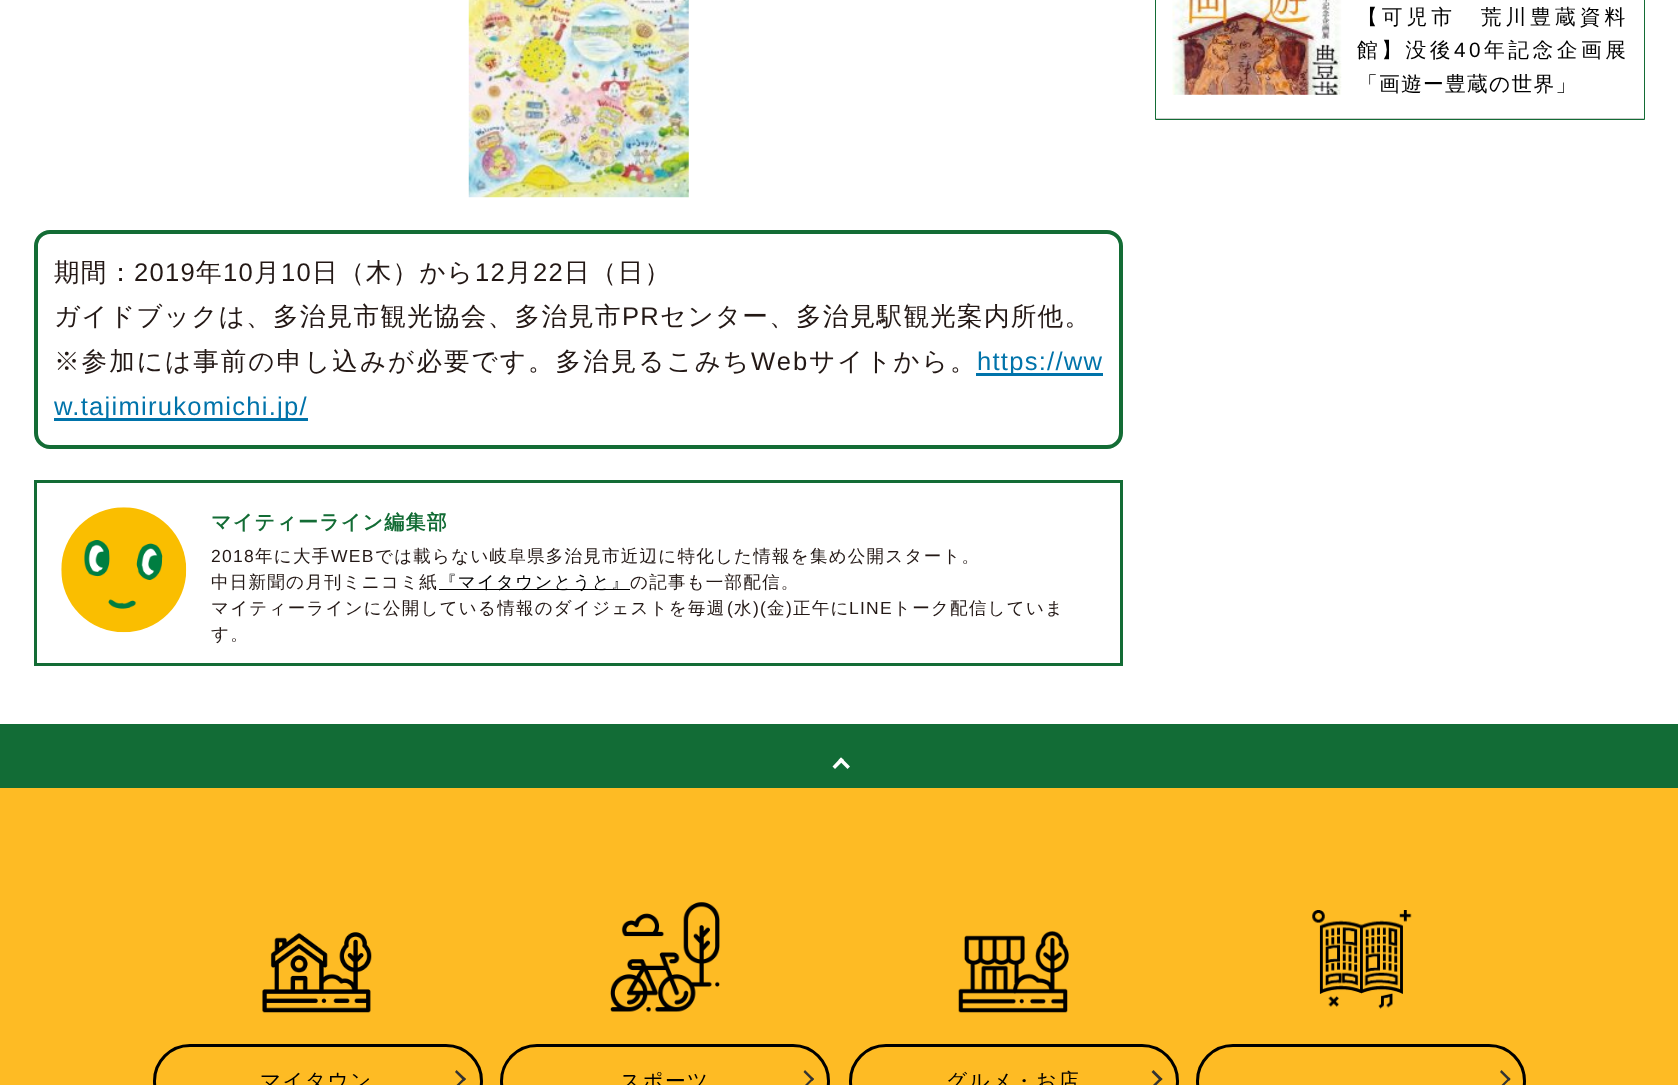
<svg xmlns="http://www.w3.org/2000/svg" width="1678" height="1085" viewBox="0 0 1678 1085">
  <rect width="100%" height="100%" fill="#fff"/>
  <path d="M1155.5 -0.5h489v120H1155.5z" fill="none" stroke="#136c35"/>
  <path d="M1156 118h488v1H1156z" fill="#ccc"/>
  <image x="1172" y="0" width="170" height="95" href="img/1.png"/>
  <image x="468" y="0" width="221" height="198" href="img/2.png"/>
  <rect x="36" y="232" width="1085" height="215" rx="14" fill="none" stroke="#136c35" stroke-width="4"/>
  <path d="M976 373h127v3H976z" fill="#0073aa"/>
  <path d="M54 418h254v3H54z" fill="#0073aa"/>
  <path d="M35.5 481.5h1086v183H35.5z" fill="none" stroke="#136c35" stroke-width="3"/>
  <image x="61" y="507" width="126" height="126" href="img/3.png"/>
  <path d="M439 589h191v1H439z" fill="#000"/>
  <path d="M0 724h1678v64H0z" fill="#126c36"/>
  <path d="M832.5 766.5L841 757.5L844 760L835 769Z" fill="#fff"/>
  <path d="M838.5 760L841 757.5L850 766.5L847.5 769Z" fill="#fff"/>
  <path d="M0 788h1678v297H0z" fill="#febb24"/>
  <image x="262" y="932" width="110" height="81" href="img/4.png"/>
  <rect x="154.5" y="1045.5" width="327" height="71" rx="35.5" fill="none" stroke="#000" stroke-width="3"/>
  <path d="M456.5 1070L466 1079L464 1081L455 1072Z" fill="#333"/>
  <path d="M464 1077.5L466 1079L456.5 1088L455 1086.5Z" fill="#333"/>
  <image x="610" y="902" width="110" height="110" href="img/5.png"/>
  <rect x="501.5" y="1045.5" width="327" height="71" rx="35.5" fill="none" stroke="#000" stroke-width="3"/>
  <path d="M805 1070L814 1079L812.5 1081L803.5 1072Z" fill="#333"/>
  <path d="M812.5 1077.5L814 1079L805 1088L803.5 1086.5Z" fill="#333"/>
  <image x="958" y="931" width="111" height="82" href="img/6.png"/>
  <rect x="850.5" y="1045.5" width="327" height="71" rx="35.5" fill="none" stroke="#000" stroke-width="3"/>
  <path d="M1153.5 1070L1162.5 1079L1160.5 1081L1151.5 1072Z" fill="#333"/>
  <path d="M1160.5 1077.5L1162.5 1079L1153.5 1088L1151.5 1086.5Z" fill="#333"/>
  <image x="1312" y="910" width="100" height="99" href="img/7.png"/>
  <rect x="1197.5" y="1045.5" width="327" height="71" rx="35.5" fill="none" stroke="#000" stroke-width="3"/>
  <path d="M1501.5 1070L1510.5 1079L1509 1081L1500 1072Z" fill="#333"/>
  <path d="M1509 1077.5L1510.5 1079L1501.5 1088L1500 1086.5Z" fill="#333"/>
  <text x="1357" y="24" font-family="WenQuanYi Zen Hei" font-size="20.75" font-weight="500" letter-spacing="4" fill="#000">【可児市　荒川豊蔵資料</text>
  <text x="1357" y="57" font-family="WenQuanYi Zen Hei" font-size="20.75" font-weight="500" letter-spacing="3.5" fill="#000">館】没後</text>
  <text x="1454" y="57" font-family="Liberation Sans" font-size="20.75" letter-spacing="3.5" fill="#000">40</text>
  <text x="1484" y="57" font-family="WenQuanYi Zen Hei" font-size="20.75" font-weight="500" letter-spacing="3.5" fill="#000">年記念企画展</text>
  <text x="1357" y="91" font-family="WenQuanYi Zen Hei" font-size="20.75" font-weight="500" letter-spacing="1.25" fill="#000">「画遊ー豊蔵の世界」</text>
  <text x="54" y="281" font-family="WenQuanYi Zen Hei" font-size="25.6" font-weight="500" letter-spacing="1.25" fill="#231815">期間：</text>
  <text x="134" y="281" font-family="Liberation Sans" font-size="25.6" letter-spacing="1.25" fill="#231815">2019</text>
  <text x="196" y="281" font-family="WenQuanYi Zen Hei" font-size="25.6" font-weight="500" letter-spacing="1.25" fill="#231815">年</text>
  <text x="223" y="281" font-family="Liberation Sans" font-size="25.6" letter-spacing="1.25" fill="#231815">10</text>
  <text x="254" y="281" font-family="WenQuanYi Zen Hei" font-size="25.6" font-weight="500" letter-spacing="1.25" fill="#231815">月</text>
  <text x="281" y="281" font-family="Liberation Sans" font-size="25.6" letter-spacing="1.25" fill="#231815">10</text>
  <text x="312" y="281" font-family="WenQuanYi Zen Hei" font-size="25.6" font-weight="500" letter-spacing="1.25" fill="#231815">日（木）から</text>
  <text x="475" y="281" font-family="Liberation Sans" font-size="25.6" letter-spacing="1.25" fill="#231815">12</text>
  <text x="506" y="281" font-family="WenQuanYi Zen Hei" font-size="25.6" font-weight="500" letter-spacing="1.25" fill="#231815">月</text>
  <text x="533" y="281" font-family="Liberation Sans" font-size="25.6" letter-spacing="1.25" fill="#231815">22</text>
  <g font-family="WenQuanYi Zen Hei" font-size="25.6" font-weight="500" letter-spacing="1.25" fill="#231815">
    <text x="564" y="281">日（日）</text>
    <text x="54" y="325">ガイドブックは、多治見市観光協会、多治見市</text>
  </g>
  <text x="622" y="325" font-family="Liberation Sans" font-size="25.6" letter-spacing="1.25" fill="#231815">PR</text>
  <text x="660" y="325" font-family="WenQuanYi Zen Hei" font-size="25.6" font-weight="500" letter-spacing="1.25" fill="#231815">センター、多治見駅観光案内所他。</text>
  <text x="54" y="370" font-family="WenQuanYi Zen Hei" font-size="25.6" font-weight="500" letter-spacing="2" fill="#231815">※参加には事前の申し込みが必要です。多治見るこみち</text>
  <text x="751" y="370" font-family="Liberation Sans" font-size="25.6" letter-spacing="2" fill="#231815">Web</text>
  <text x="809" y="370" font-family="WenQuanYi Zen Hei" font-size="25.6" font-weight="500" letter-spacing="2" fill="#231815">サイトから。</text>
  <g font-family="Liberation Sans" font-size="25.6" letter-spacing="1.25" fill="#0073aa">
    <text x="977" y="370">https://ww</text>
    <text x="54" y="415">w.tajimirukomichi.jp/</text>
  </g>
  <text x="211" y="529" font-family="WenQuanYi Zen Hei" font-size="20" font-weight="bold" letter-spacing="1.25" fill="#136c35">マイティーライン編集部</text>
  <text x="211" y="562" font-family="Liberation Sans" font-size="17.5" letter-spacing="1.25" fill="#231815">2018</text>
  <text x="255" y="562" font-family="WenQuanYi Zen Hei" font-size="17.5" font-weight="500" letter-spacing="1.25" fill="#231815">年に大手</text>
  <text x="331" y="562" font-family="Liberation Sans" font-size="17.5" letter-spacing="1.25" fill="#231815">WEB</text>
  <g font-family="WenQuanYi Zen Hei" font-size="17.5" font-weight="500" letter-spacing="1.25" fill="#231815">
    <text x="375" y="562">では載らない岐阜県多治見市近辺に特化した情報を集め公開スタート。</text>
    <text x="211" y="588">中日新聞の月刊ミニコミ紙</text>
  </g>
  <text x="439" y="588" font-family="WenQuanYi Zen Hei" font-size="17.5" font-weight="500" letter-spacing="1.25" fill="#000">『マイタウンとうと』</text>
  <g font-family="WenQuanYi Zen Hei" font-size="17.5" font-weight="500" letter-spacing="1.25" fill="#231815">
    <text x="630" y="588">の記事も一部配信。</text>
    <text x="211" y="614">マイティーラインに公開している情報のダイジェストを毎週</text>
  </g>
  <text x="727" y="614" font-family="Liberation Sans" font-size="17.5" letter-spacing="1.25" fill="#231815">(</text>
  <text x="734" y="614" font-family="WenQuanYi Zen Hei" font-size="17.5" font-weight="500" letter-spacing="1.25" fill="#231815">水</text>
  <text x="753" y="614" font-family="Liberation Sans" font-size="17.5" letter-spacing="1.25" fill="#231815">)(</text>
  <text x="767" y="614" font-family="WenQuanYi Zen Hei" font-size="17.5" font-weight="500" letter-spacing="1.25" fill="#231815">金</text>
  <text x="786" y="614" font-family="Liberation Sans" font-size="17.5" letter-spacing="1.25" fill="#231815">)</text>
  <text x="793" y="614" font-family="WenQuanYi Zen Hei" font-size="17.5" font-weight="500" letter-spacing="1.25" fill="#231815">正午に</text>
  <text x="849" y="614" font-family="Liberation Sans" font-size="17.5" letter-spacing="1.25" fill="#231815">LINE</text>
  <g font-family="WenQuanYi Zen Hei" font-size="17.5" font-weight="500" letter-spacing="1.25" fill="#231815">
    <text x="893" y="614">トーク配信していま</text>
    <text x="211" y="640">す。</text>
  </g>
  <g font-family="WenQuanYi Zen Hei" font-size="20.75" font-weight="500" letter-spacing="1.25" fill="#000">
    <text x="260" y="1088">マイタウン</text>
    <text x="620" y="1088">スポーツ</text>
    <text x="946" y="1088">グルメ・お店</text>
  </g>
</svg>
